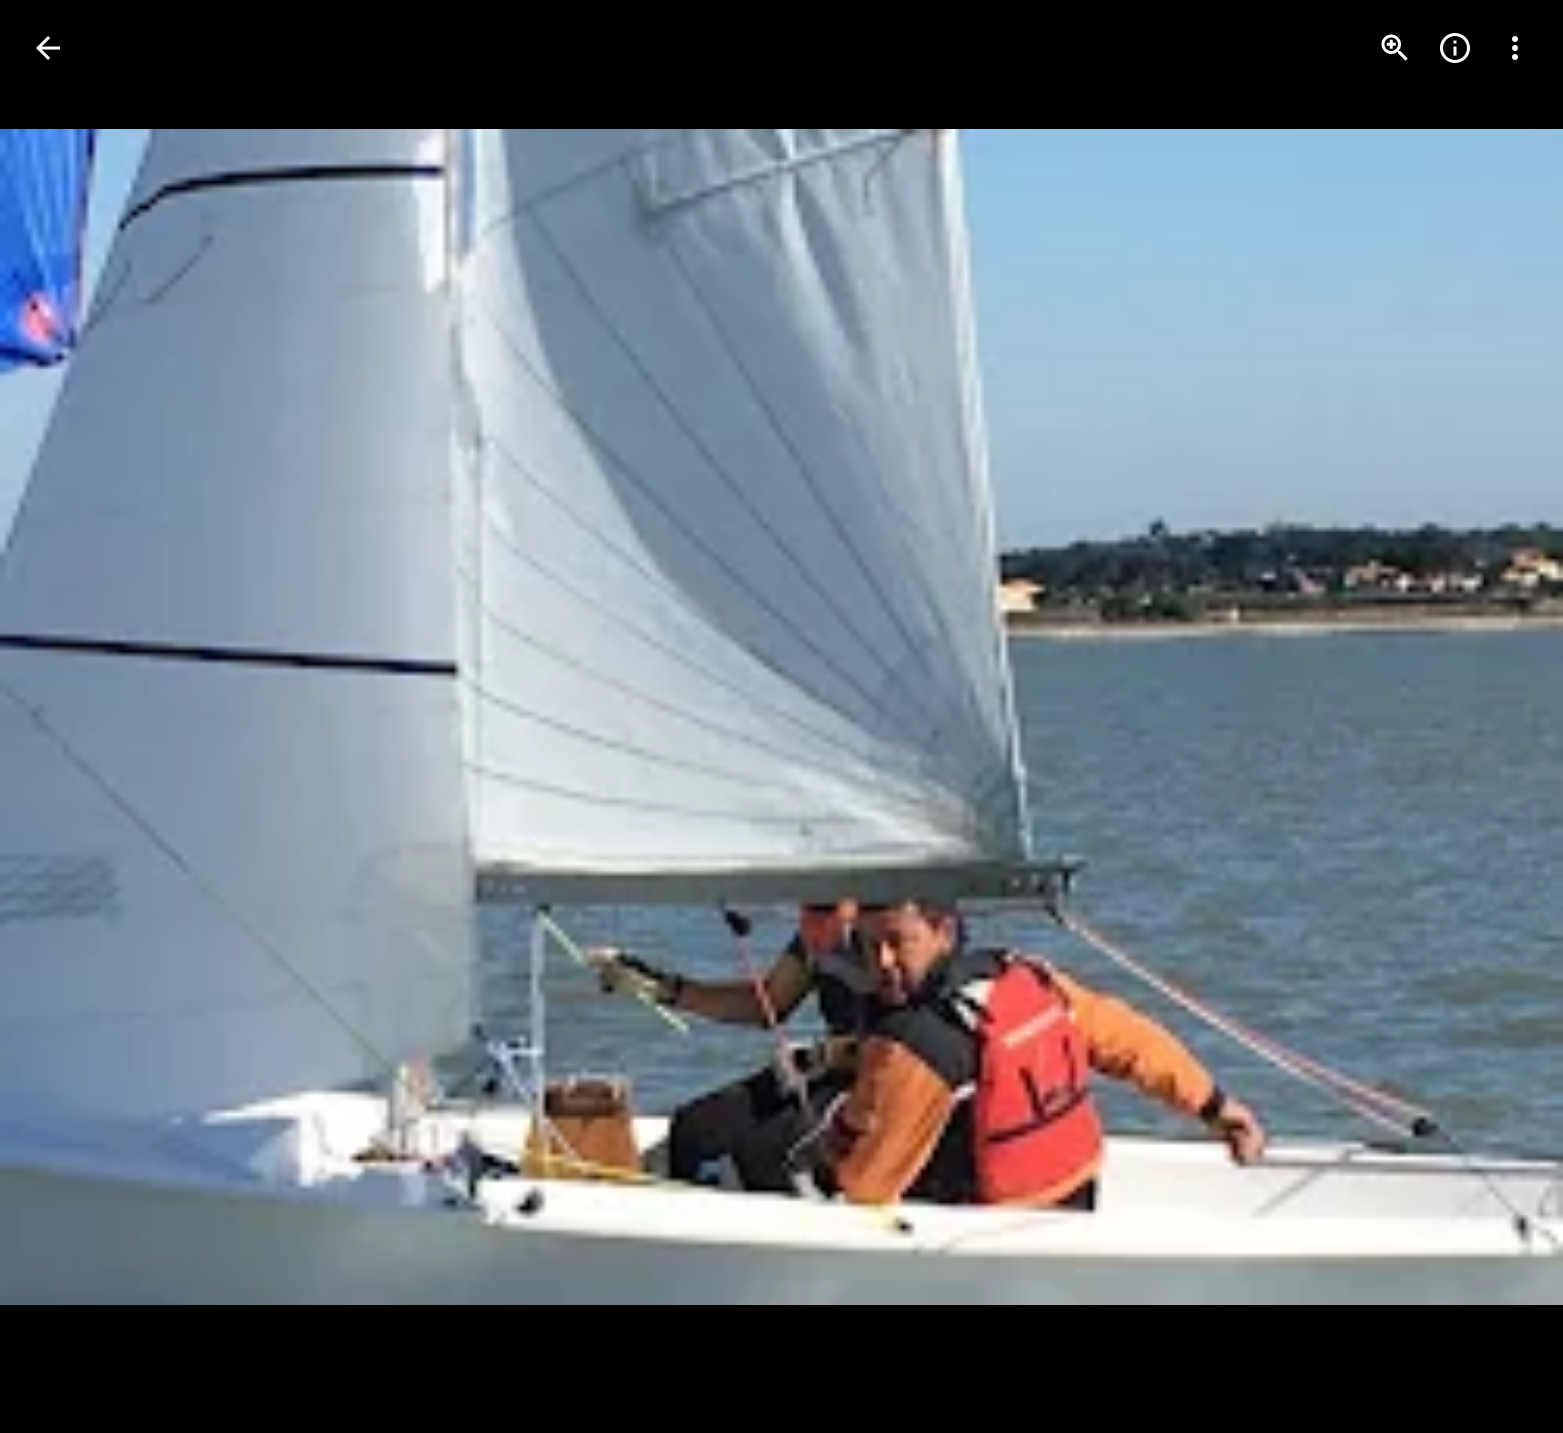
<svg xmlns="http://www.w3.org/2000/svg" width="1563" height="1433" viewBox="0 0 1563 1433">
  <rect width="100%" height="100%" fill="#000"/>
  <image x="36" y="36" width="24" height="24" href="img/1.png"/>
  <image x="1381" y="34" width="27" height="27" href="img/2.png"/>
  <image x="1440" y="33" width="30" height="30" href="img/3.png"/>
  <image x="1512" y="36" width="6" height="24" href="img/4.png"/>
  <image x="0" y="129" width="1563" height="1176" href="img/5.png"/>
</svg>
